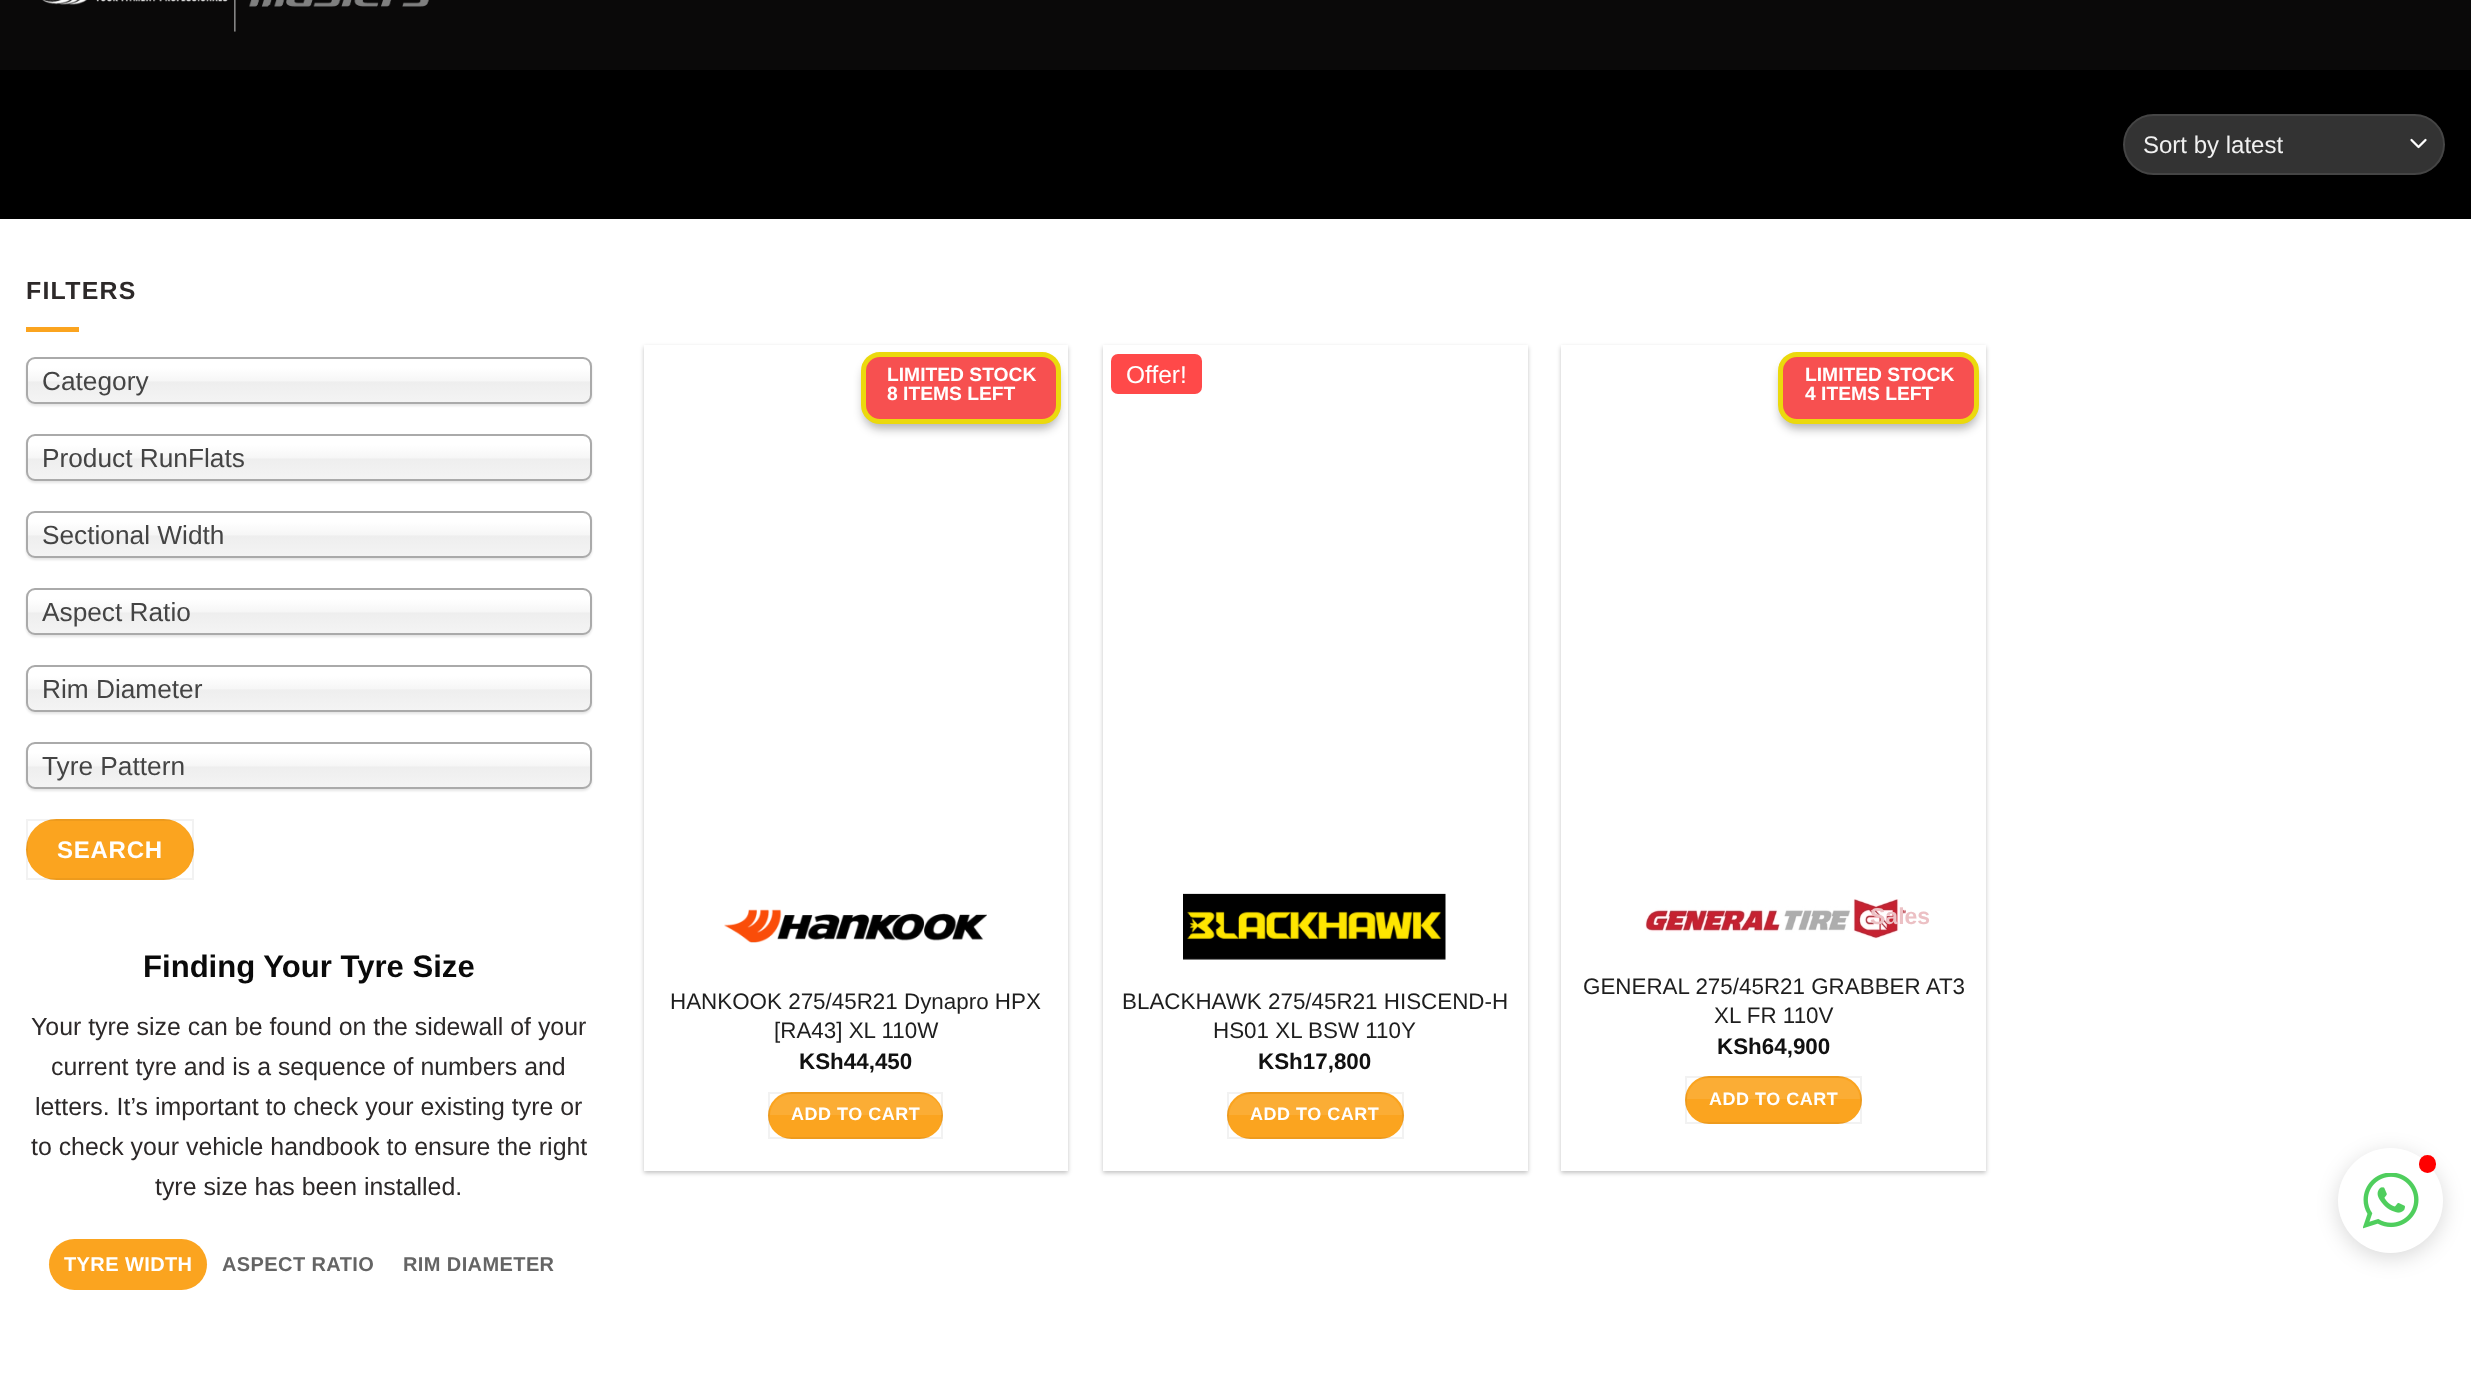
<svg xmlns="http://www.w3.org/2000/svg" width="2471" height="1386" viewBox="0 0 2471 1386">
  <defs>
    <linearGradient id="g1" gradientUnits="userSpaceOnUse" x1="309" y1="359" x2="309" y2="403"><stop offset="0.2" stop-color="#fff"/><stop offset="0.5" stop-color="#f6f6f6"/><stop offset="0.52" stop-color="#eee"/><stop offset="1" stop-color="#f4f4f4"/></linearGradient>
    <linearGradient id="g2" gradientUnits="userSpaceOnUse" x1="309" y1="436" x2="309" y2="480"><stop offset="0.2" stop-color="#fff"/><stop offset="0.5" stop-color="#f6f6f6"/><stop offset="0.52" stop-color="#eee"/><stop offset="1" stop-color="#f4f4f4"/></linearGradient>
    <linearGradient id="g3" gradientUnits="userSpaceOnUse" x1="309" y1="513" x2="309" y2="557"><stop offset="0.2" stop-color="#fff"/><stop offset="0.5" stop-color="#f6f6f6"/><stop offset="0.52" stop-color="#eee"/><stop offset="1" stop-color="#f4f4f4"/></linearGradient>
    <linearGradient id="g4" gradientUnits="userSpaceOnUse" x1="309" y1="590" x2="309" y2="634"><stop offset="0.2" stop-color="#fff"/><stop offset="0.5" stop-color="#f6f6f6"/><stop offset="0.52" stop-color="#eee"/><stop offset="1" stop-color="#f4f4f4"/></linearGradient>
    <linearGradient id="g5" gradientUnits="userSpaceOnUse" x1="309" y1="667" x2="309" y2="711"><stop offset="0.2" stop-color="#fff"/><stop offset="0.5" stop-color="#f6f6f6"/><stop offset="0.52" stop-color="#eee"/><stop offset="1" stop-color="#f4f4f4"/></linearGradient>
    <linearGradient id="g6" gradientUnits="userSpaceOnUse" x1="309" y1="744" x2="309" y2="788"><stop offset="0.2" stop-color="#fff"/><stop offset="0.5" stop-color="#f6f6f6"/><stop offset="0.52" stop-color="#eee"/><stop offset="1" stop-color="#f4f4f4"/></linearGradient>
    <clipPath id="clip1"><rect x="770" y="1094" width="172" height="44" rx="22"/></clipPath>
    <clipPath id="clip2"><rect x="1229" y="1094" width="173" height="44" rx="22"/></clipPath>
    <clipPath id="clip3"><rect x="1687" y="1078" width="173" height="44" rx="22"/></clipPath>
  </defs>
  <rect width="100%" height="100%" fill="#fff"/>
  <path d="M0 0h2471v70H0z" fill="#0a0909"/>
  <image x="42" y="0" width="387" height="32" href="img/1.png"/>
  <path d="M0 70h2471v149H0z" fill="#000"/>
  <rect x="2123" y="114" width="322" height="61" rx="30.5" fill="#333"/>
  <path d="M2411.5 140L2418.5 147L2425.5 140" fill="none" stroke="#fff" stroke-width="2.3" stroke-linecap="round" stroke-linejoin="round"/>
  <rect x="2124" y="115" width="320" height="59" rx="29.5" fill="none" stroke="#ffffff17" stroke-width="2"/>
  <path d="M26 327h53v5H26z" fill="#fba41f"/>
  <rect x="26" y="359" width="566" height="47" rx="9" fill="#0000001a" filter="blur(1px)"/>
  <rect x="28" y="359" width="562" height="44" rx="7" fill="url(#g1)"/>
  <rect x="27" y="358" width="564" height="45" rx="8" fill="none" stroke="#aaa" stroke-width="2"/>
  <rect x="26" y="436" width="566" height="47" rx="9" fill="#0000001a" filter="blur(1px)"/>
  <rect x="28" y="436" width="562" height="44" rx="7" fill="url(#g2)"/>
  <rect x="27" y="435" width="564" height="45" rx="8" fill="none" stroke="#aaa" stroke-width="2"/>
  <rect x="26" y="513" width="566" height="47" rx="9" fill="#0000001a" filter="blur(1px)"/>
  <rect x="28" y="513" width="562" height="44" rx="7" fill="url(#g3)"/>
  <rect x="27" y="512" width="564" height="45" rx="8" fill="none" stroke="#aaa" stroke-width="2"/>
  <rect x="26" y="590" width="566" height="47" rx="9" fill="#0000001a" filter="blur(1px)"/>
  <rect x="28" y="590" width="562" height="44" rx="7" fill="url(#g4)"/>
  <rect x="27" y="589" width="564" height="45" rx="8" fill="none" stroke="#aaa" stroke-width="2"/>
  <rect x="26" y="667" width="566" height="47" rx="9" fill="#0000001a" filter="blur(1px)"/>
  <rect x="28" y="667" width="562" height="44" rx="7" fill="url(#g5)"/>
  <rect x="27" y="666" width="564" height="45" rx="8" fill="none" stroke="#aaa" stroke-width="2"/>
  <rect x="26" y="744" width="566" height="47" rx="9" fill="#0000001a" filter="blur(1px)"/>
  <rect x="28" y="744" width="562" height="44" rx="7" fill="url(#g6)"/>
  <rect x="27" y="743" width="564" height="45" rx="8" fill="none" stroke="#aaa" stroke-width="2"/>
  <rect x="26" y="819" width="168" height="61" rx="30.5" fill="#fba41f"/>
  <path d="M27 820h166v59H27z" fill="none" stroke="#0000000d" stroke-width="2"/>
  <rect x="49" y="1239" width="158" height="51" rx="25.5" fill="#fba41f"/>
  <path d="M644 347h424v826H644z" fill="#0000003d" filter="blur(2px)"/>
  <path d="M644 345h424v826H644z" fill="#fff"/>
  <rect x="863" y="361" width="196" height="68" rx="18" fill="#0d0d0d4d" filter="blur(5px)"/>
  <rect x="863.5" y="354.5" width="195" height="67" rx="16.5" fill="#f75050" stroke="#ebd90d" stroke-width="5"/>
  <image x="724" y="909" width="263" height="34" href="img/2.png"/>
  <rect x="768" y="1092" width="175" height="47" rx="23.5" fill="#fba41f"/>
  <path d="M769 1093h173v45H769z" fill="none" stroke="#0000000d" stroke-width="2"/>
  <g clip-path="url(#clip1)">
    <path d="M770 1094h172v21H770z" fill="#ffffff1a"/>
  </g>
  <path d="M1103 347h425v826H1103z" fill="#0000003d" filter="blur(2px)"/>
  <path d="M1103 345h425v826H1103z" fill="#fff"/>
  <rect x="1111" y="354" width="91" height="40" rx="7" fill="#ff4949"/>
  <image x="1183" y="893" width="263" height="67" href="img/3.png"/>
  <rect x="1227" y="1092" width="177" height="47" rx="23.5" fill="#fba41f"/>
  <path d="M1228 1093h175v45H1228z" fill="none" stroke="#0000000d" stroke-width="2"/>
  <g clip-path="url(#clip2)">
    <path d="M1229 1094h173v21H1229z" fill="#ffffff1a"/>
  </g>
  <path d="M1561 347h425v826H1561z" fill="#0000003d" filter="blur(2px)"/>
  <path d="M1561 345h425v826H1561z" fill="#fff"/>
  <rect x="1780" y="361" width="198" height="68" rx="18" fill="#0d0d0d4d" filter="blur(5px)"/>
  <rect x="1780.5" y="354.5" width="196" height="67" rx="16.5" fill="#f75050" stroke="#ebd90d" stroke-width="5"/>
  <image x="1645" y="899" width="261" height="40" href="img/4.png"/>
  <rect x="1685" y="1076" width="177" height="48" rx="24" fill="#fba41f"/>
  <path d="M1686 1077h175v46H1686z" fill="none" stroke="#0000000d" stroke-width="2"/>
  <g clip-path="url(#clip3)">
    <path d="M1687 1078h173v21H1687z" fill="#ffffff1a"/>
  </g>
  <rect x="2338" y="1153" width="105" height="105" rx="52.5" fill="#00000026" filter="blur(10.5px)"/>
  <circle cx="2390.5" cy="1200.5" r="52.5" fill="#fff"/>
  <rect x="2419" y="1155" width="17" height="18" rx="8.5" fill="#f00"/>
  <image x="2363" y="1173" width="56" height="56" href="img/5.png"/>
  <text x="2143" y="153" font-family="Liberation Sans" font-size="24" fill="#f1f1f1">Sort by latest</text>
  <text x="26" y="299" font-family="Liberation Sans" font-size="24.9" font-weight="bold" letter-spacing="1.25" fill="#2d2929">FILTERS</text>
  <g font-family="Liberation Sans" font-size="26.25" fill="#444">
    <text x="42" y="390">Category</text>
    <text x="42" y="467">Product RunFlats</text>
    <text x="42" y="544">Sectional Width</text>
    <text x="42" y="621">Aspect Ratio</text>
    <text x="42" y="698">Rim Diameter</text>
    <text x="42" y="775">Tyre Pattern</text>
  </g>
  <text x="57" y="858" font-family="Liberation Sans" font-size="24" font-weight="bold" letter-spacing="0.75" fill="#fff">SEARCH</text>
  <text x="143" y="977" font-family="Liberation Sans" font-size="31.1" font-weight="bold" fill="#0a0a0a">Finding Your Tyre Size</text>
  <g font-family="Liberation Sans" font-size="24.9" fill="#2d2929">
    <text x="31" y="1035">Your tyre size can be found on the sidewall of your</text>
    <text x="51" y="1075">current tyre and is a sequence of numbers and</text>
    <text x="35" y="1115">letters. It’s important to check your existing tyre or</text>
    <text x="31" y="1155">to check your vehicle handbook to ensure the right</text>
    <text x="155" y="1195">tyre size has been installed.</text>
  </g>
  <text x="64" y="1271" font-family="Liberation Sans" font-size="20" font-weight="bold" letter-spacing="0.4" fill="#fff">TYRE WIDTH</text>
  <g font-family="Liberation Sans" font-size="20" font-weight="bold" letter-spacing="0.4" fill="#656565">
    <text x="222" y="1271">ASPECT RATIO</text>
    <text x="403" y="1271">RIM DIAMETER</text>
  </g>
  <g font-family="Liberation Sans" font-size="19.25" font-weight="bold" fill="#fff">
    <text x="887" y="381">LIMITED STOCK</text>
    <text x="887" y="400">8 ITEMS LEFT</text>
  </g>
  <g font-family="Liberation Sans" font-size="22.4" fill="#1e1e1e">
    <text x="670" y="1009">HANKOOK 275/45R21 Dynapro HPX</text>
    <text x="774" y="1038">[RA43] XL 110W</text>
  </g>
  <text x="799" y="1069" font-family="Liberation Sans" font-size="22.4" font-weight="bold" fill="#111">KSh44,450</text>
  <text x="791" y="1120" font-family="Liberation Sans" font-size="18" font-weight="bold" letter-spacing="0.5" fill="#fff">ADD TO CART</text>
  <text x="1126" y="383" font-family="Liberation Sans" font-size="24.5" fill="#fff">Offer!</text>
  <g font-family="Liberation Sans" font-size="22.4" fill="#1e1e1e">
    <text x="1122" y="1009">BLACKHAWK 275/45R21 HISCEND-H</text>
    <text x="1213" y="1038">HS01 XL BSW 110Y</text>
  </g>
  <text x="1258" y="1069" font-family="Liberation Sans" font-size="22.4" font-weight="bold" fill="#111">KSh17,800</text>
  <text x="1250" y="1120" font-family="Liberation Sans" font-size="18" font-weight="bold" letter-spacing="0.5" fill="#fff">ADD TO CART</text>
  <g font-family="Liberation Sans" font-size="19.25" font-weight="bold" fill="#fff">
    <text x="1805" y="381">LIMITED STOCK</text>
    <text x="1805" y="400">4 ITEMS LEFT</text>
  </g>
  <g font-family="Liberation Sans" font-size="22.4" fill="#1e1e1e">
    <text x="1583" y="994">GENERAL 275/45R21 GRABBER AT3</text>
    <text x="1714" y="1023">XL FR 110V</text>
  </g>
  <text x="1717" y="1054" font-family="Liberation Sans" font-size="22.4" font-weight="bold" fill="#111">KSh64,900</text>
  <text x="1709" y="1105" font-family="Liberation Sans" font-size="18" font-weight="bold" letter-spacing="0.5" fill="#fff">ADD TO CART</text>
  <text x="1870" y="924" font-family="Liberation Sans" font-size="23" font-weight="bold" fill="#ecc0c4">Sales</text>
</svg>
